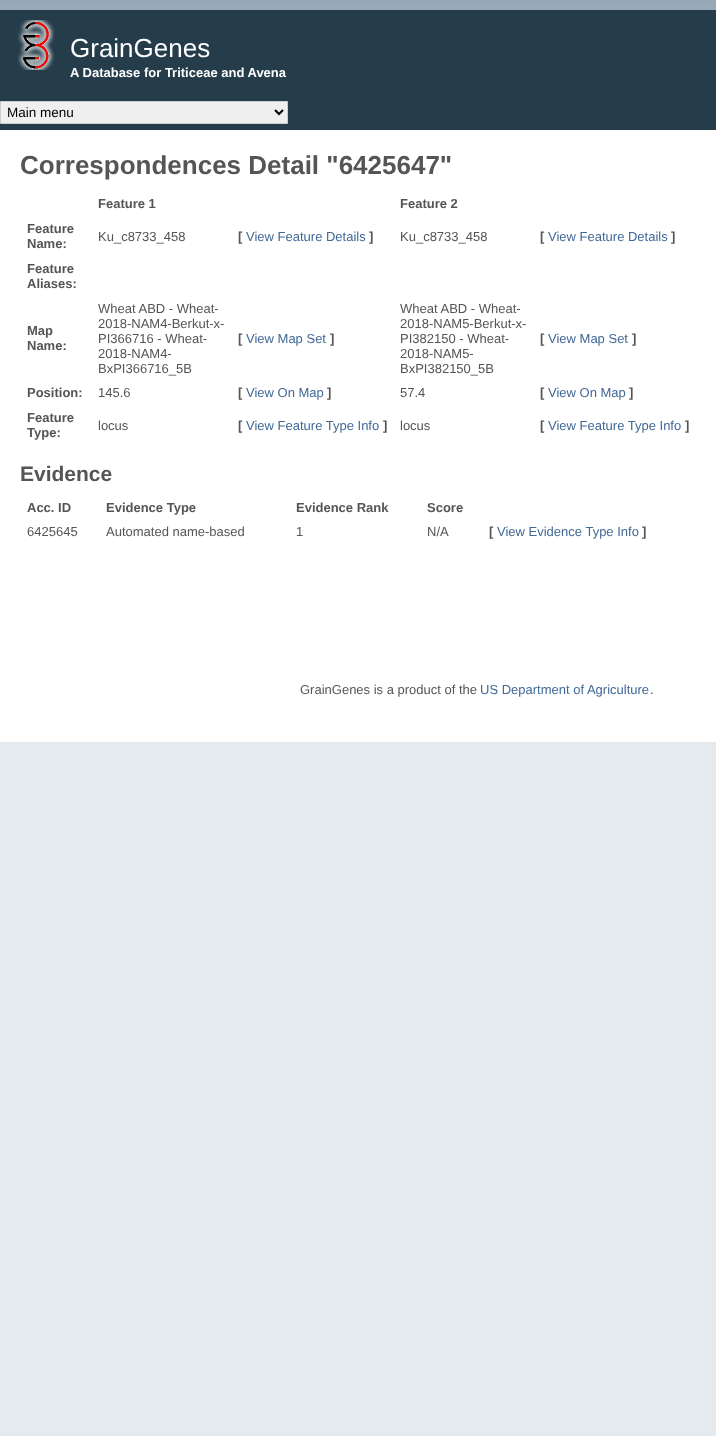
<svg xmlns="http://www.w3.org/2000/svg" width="716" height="1436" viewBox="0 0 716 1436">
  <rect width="100%" height="100%" fill="#e5eaee"/>
  <image x="0" y="0" width="716" height="10" href="img/1.png"/>
  <path d="M0 130h716v612H0z" fill="#fff"/>
  <path d="M0 10h716v120H0z" fill="#253d4b"/>
  <image x="17" y="20" width="38" height="50" href="img/2.png"/>
  <path d="M0.5 101.5h287v22H0.5z" fill="#efefef" stroke="#ccc"/>
  <path d="M275 110L279 114L283 110" fill="none" stroke="#000" stroke-width="2"/>
  <text x="70" y="57" font-family="Liberation Sans" font-size="26" fill="#fefefe">GrainGenes</text>
  <text x="70" y="77" font-family="Liberation Sans" font-size="13" font-weight="bold" fill="#fefefe">A Database for Triticeae and Avena</text>
  <text x="7" y="117" font-family="Liberation Sans" font-size="13.5" fill="#000">Main menu</text>
  <text x="20" y="174" font-family="Liberation Sans" font-size="26" font-weight="bold" fill="#555">Correspondences Detail "6425647"</text>
  <g font-family="Liberation Sans" font-size="13" font-weight="bold" fill="#555">
    <text x="98" y="208">Feature 1</text>
    <text x="400" y="208">Feature 2</text>
    <text x="27" y="233">Feature</text>
    <text x="27" y="248">Name:</text>
  </g>
  <text x="98" y="241" font-family="Liberation Sans" font-size="13" fill="#555">Ku_c8733_458</text>
  <text x="238" y="241" font-family="Liberation Sans" font-size="13" font-weight="bold" fill="#555">[</text>
  <text x="246" y="241" font-family="Liberation Sans" font-size="13" fill="#416896">View Feature Details</text>
  <text x="369" y="241" font-family="Liberation Sans" font-size="13" font-weight="bold" fill="#555">]</text>
  <text x="400" y="241" font-family="Liberation Sans" font-size="13" fill="#555">Ku_c8733_458</text>
  <text x="540" y="241" font-family="Liberation Sans" font-size="13" font-weight="bold" fill="#555">[</text>
  <text x="548" y="241" font-family="Liberation Sans" font-size="13" fill="#416896">View Feature Details</text>
  <g font-family="Liberation Sans" font-size="13" font-weight="bold" fill="#555">
    <text x="671" y="241">]</text>
    <text x="27" y="273">Feature</text>
    <text x="27" y="288">Aliases:</text>
    <text x="27" y="335">Map</text>
    <text x="27" y="350">Name:</text>
  </g>
  <g font-family="Liberation Sans" font-size="13" fill="#555">
    <text x="98" y="313">Wheat ABD - Wheat-</text>
    <text x="98" y="328">2018-NAM4-Berkut-x-</text>
    <text x="98" y="343">PI366716 - Wheat-</text>
    <text x="98" y="358">2018-NAM4-</text>
    <text x="98" y="373">BxPI366716_5B</text>
  </g>
  <text x="238" y="343" font-family="Liberation Sans" font-size="13" font-weight="bold" fill="#555">[</text>
  <text x="246" y="343" font-family="Liberation Sans" font-size="13" fill="#416896">View Map Set</text>
  <text x="330" y="343" font-family="Liberation Sans" font-size="13" font-weight="bold" fill="#555">]</text>
  <g font-family="Liberation Sans" font-size="13" fill="#555">
    <text x="400" y="313">Wheat ABD - Wheat-</text>
    <text x="400" y="328">2018-NAM5-Berkut-x-</text>
    <text x="400" y="343">PI382150 - Wheat-</text>
    <text x="400" y="358">2018-NAM5-</text>
    <text x="400" y="373">BxPI382150_5B</text>
  </g>
  <text x="540" y="343" font-family="Liberation Sans" font-size="13" font-weight="bold" fill="#555">[</text>
  <text x="548" y="343" font-family="Liberation Sans" font-size="13" fill="#416896">View Map Set</text>
  <g font-family="Liberation Sans" font-size="13" font-weight="bold" fill="#555">
    <text x="632" y="343">]</text>
    <text x="27" y="397">Position:</text>
  </g>
  <text x="98" y="397" font-family="Liberation Sans" font-size="13" fill="#555">145.6</text>
  <text x="238" y="397" font-family="Liberation Sans" font-size="13" font-weight="bold" fill="#555">[</text>
  <text x="246" y="397" font-family="Liberation Sans" font-size="13" fill="#416896">View On Map</text>
  <text x="327" y="397" font-family="Liberation Sans" font-size="13" font-weight="bold" fill="#555">]</text>
  <text x="400" y="397" font-family="Liberation Sans" font-size="13" fill="#555">57.4</text>
  <text x="540" y="397" font-family="Liberation Sans" font-size="13" font-weight="bold" fill="#555">[</text>
  <text x="548" y="397" font-family="Liberation Sans" font-size="13" fill="#416896">View On Map</text>
  <g font-family="Liberation Sans" font-size="13" font-weight="bold" fill="#555">
    <text x="629" y="397">]</text>
    <text x="27" y="422">Feature</text>
    <text x="27" y="437">Type:</text>
  </g>
  <text x="98" y="430" font-family="Liberation Sans" font-size="13" fill="#555">locus</text>
  <text x="238" y="430" font-family="Liberation Sans" font-size="13" font-weight="bold" fill="#555">[</text>
  <text x="246" y="430" font-family="Liberation Sans" font-size="13" fill="#416896">View Feature Type Info</text>
  <text x="383" y="430" font-family="Liberation Sans" font-size="13" font-weight="bold" fill="#555">]</text>
  <text x="400" y="430" font-family="Liberation Sans" font-size="13" fill="#555">locus</text>
  <text x="540" y="430" font-family="Liberation Sans" font-size="13" font-weight="bold" fill="#555">[</text>
  <text x="548" y="430" font-family="Liberation Sans" font-size="13" fill="#416896">View Feature Type Info</text>
  <text x="685" y="430" font-family="Liberation Sans" font-size="13" font-weight="bold" fill="#555">]</text>
  <text x="20" y="481" font-family="Liberation Sans" font-size="21" font-weight="bold" fill="#555">Evidence</text>
  <g font-family="Liberation Sans" font-size="13" font-weight="bold" fill="#555">
    <text x="27" y="512">Acc. ID</text>
    <text x="106" y="512">Evidence Type</text>
    <text x="296" y="512">Evidence Rank</text>
    <text x="427" y="512">Score</text>
  </g>
  <g font-family="Liberation Sans" font-size="13" fill="#555">
    <text x="27" y="536">6425645</text>
    <text x="106" y="536">Automated name-based</text>
    <text x="296" y="536">1</text>
    <text x="427" y="536">N/A</text>
  </g>
  <text x="489" y="536" font-family="Liberation Sans" font-size="13" font-weight="bold" fill="#555">[</text>
  <text x="497" y="536" font-family="Liberation Sans" font-size="13" fill="#416896">View Evidence Type Info</text>
  <text x="642" y="536" font-family="Liberation Sans" font-size="13" font-weight="bold" fill="#555">]</text>
  <text x="300" y="694" font-family="Liberation Sans" font-size="13" fill="#555">GrainGenes is a product of the</text>
  <text x="480" y="694" font-family="Liberation Sans" font-size="13" fill="#416896">US Department of Agriculture</text>
  <text x="650" y="694" font-family="Liberation Sans" font-size="13" fill="#555">.</text>
</svg>
